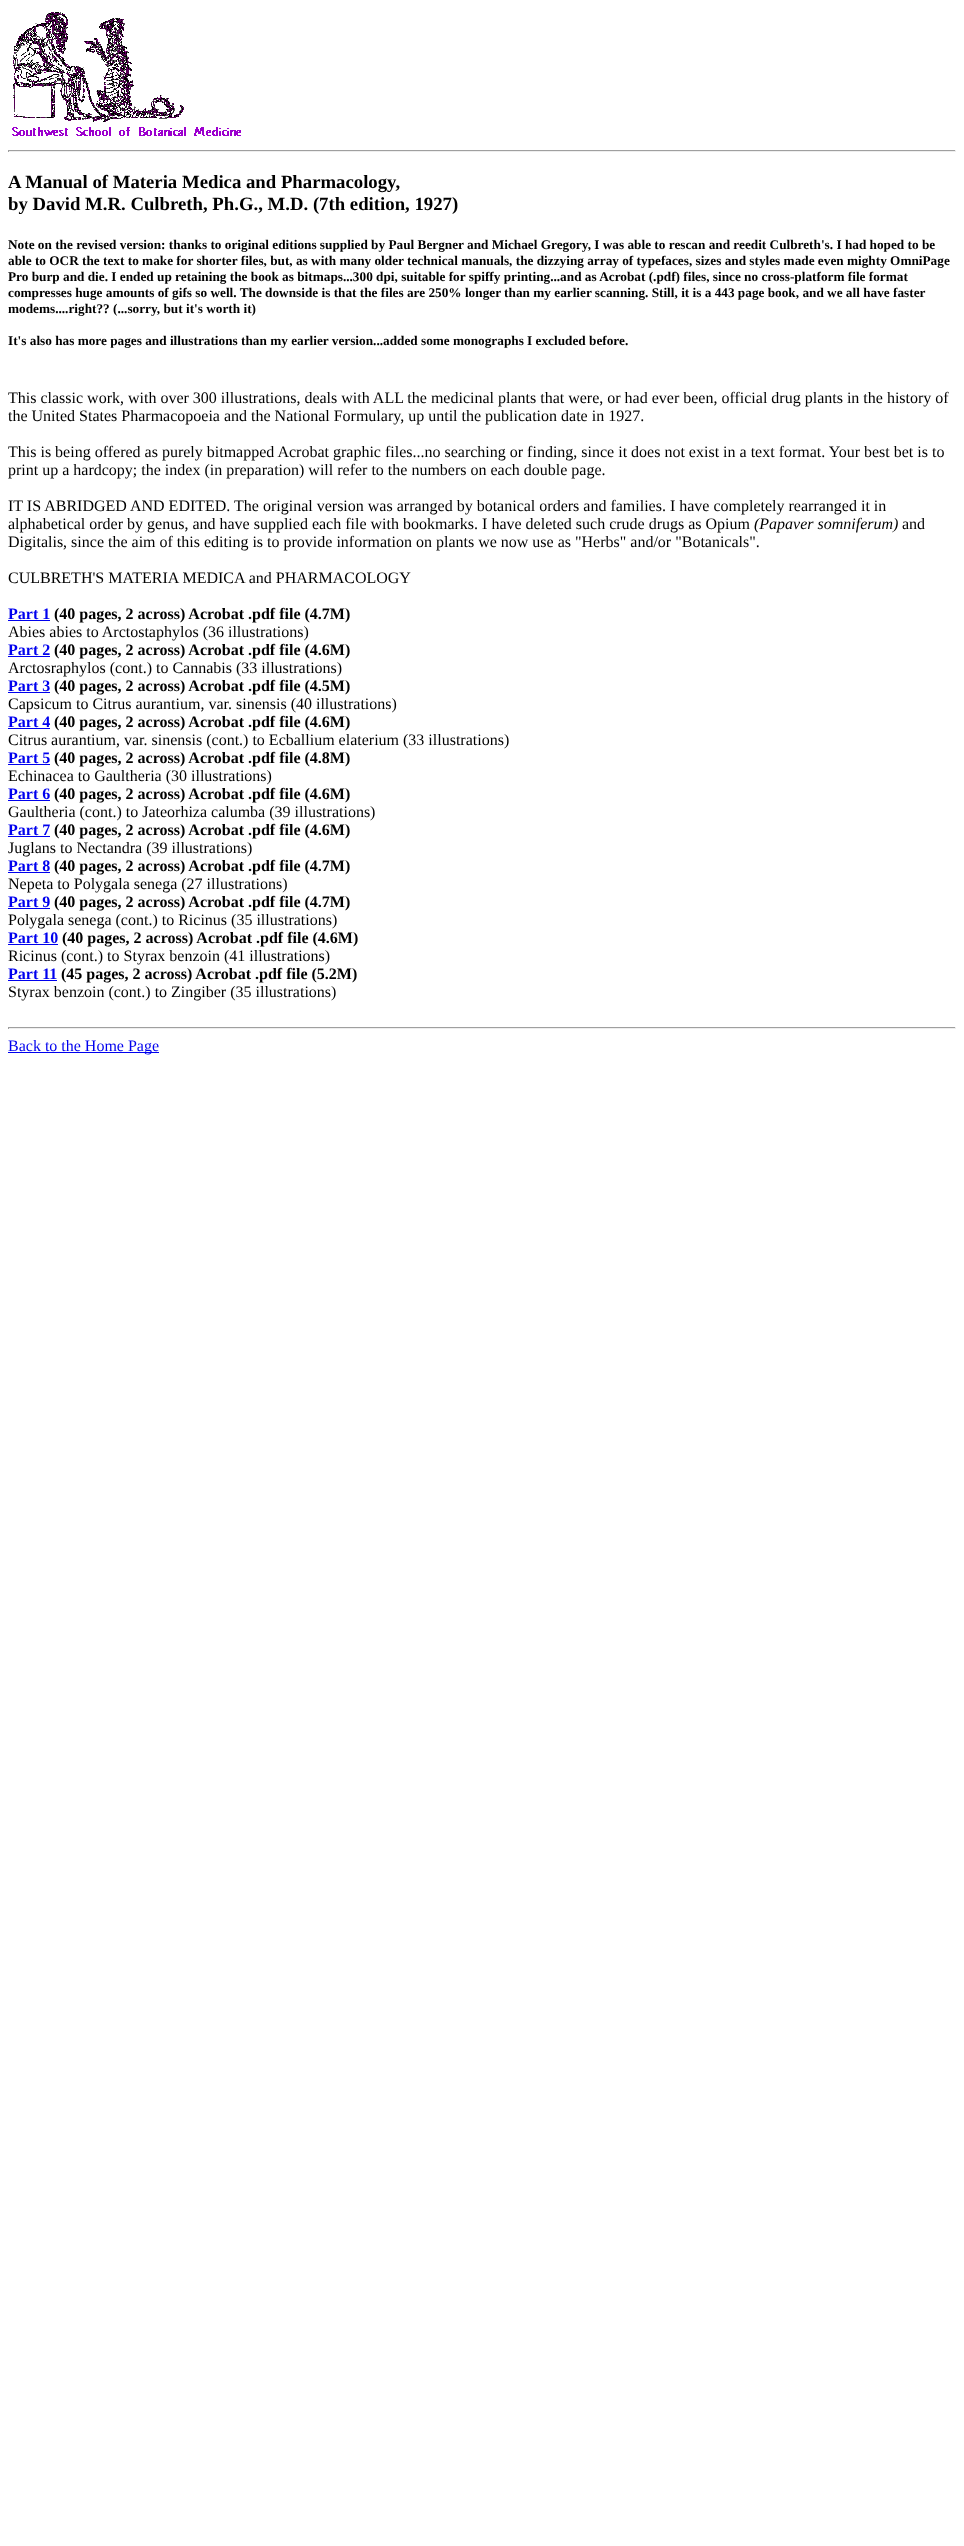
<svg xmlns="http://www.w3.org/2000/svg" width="964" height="2546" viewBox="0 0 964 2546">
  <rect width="100%" height="100%" fill="#fff"/>
  <image x="12" y="12" width="229" height="124" href="img/1.png"/>
  <path d="M8 150h948v1H8z" fill="#9f9f9f"/>
  <path d="M955 150h1v2H955z" fill="#eee"/>
  <path d="M8 151h948v1H8z" fill="#eee"/>
  <path d="M8 150h1v2H8z" fill="#9f9f9f"/>
  <path d="M8 620h42v1H8z" fill="#00e"/>
  <path d="M8 656h42v1H8z" fill="#00e"/>
  <path d="M8 692h42v1H8z" fill="#00e"/>
  <path d="M8 728h42v1H8z" fill="#00e"/>
  <path d="M8 764h42v1H8z" fill="#00e"/>
  <path d="M8 800h42v1H8z" fill="#00e"/>
  <path d="M8 836h42v1H8z" fill="#00e"/>
  <path d="M8 872h42v1H8z" fill="#00e"/>
  <path d="M8 908h42v1H8z" fill="#00e"/>
  <path d="M8 944h50v1H8z" fill="#00e"/>
  <path d="M8 980h49v1H8z" fill="#00e"/>
  <path d="M8 1027h948v1H8z" fill="#9f9f9f"/>
  <path d="M955 1027h1v2H955z" fill="#eee"/>
  <path d="M8 1028h948v1H8z" fill="#eee"/>
  <path d="M8 1027h1v2H8z" fill="#9f9f9f"/>
  <path d="M8 1052h151v1H8z" fill="#00e"/>
  <g font-family="Liberation Serif" font-size="18.75" font-weight="bold" fill="#000">
    <text x="8" y="188">A Manual of Materia Medica and Pharmacology,</text>
    <text x="8" y="210">by David M.R. Culbreth, Ph.G., M.D. (7th edition, 1927)</text>
  </g>
  <g font-family="Liberation Serif" font-size="13.28" font-weight="bold" fill="#000">
    <text x="8" y="249">Note on the revised version: thanks to original editions supplied by Paul Bergner and Michael Gregory, I was able to rescan and reedit Culbreth's. I had hoped to be</text>
    <text x="8" y="265">able to OCR the text to make for shorter files, but, as with many older technical manuals, the dizzying array of typefaces, sizes and styles made even mighty OmniPage</text>
    <text x="8" y="281">Pro burp and die. I ended up retaining the book as bitmaps...300 dpi, suitable for spiffy printing...and as Acrobat (.pdf) files, since no cross-platform file format</text>
    <text x="8" y="297">compresses huge amounts of gifs so well. The downside is that the files are 250% longer than my earlier scanning. Still, it is a 443 page book, and we all have faster</text>
    <text x="8" y="313">modems....right?? (...sorry, but it's worth it)</text>
    <text x="8" y="345">It's also has more pages and illustrations than my earlier version...added some monographs I excluded before.</text>
  </g>
  <g font-family="Liberation Serif" font-size="16" fill="#000">
    <text x="8" y="403">This classic work, with over 300 illustrations, deals with ALL the medicinal plants that were, or had ever been, official drug plants in the history of</text>
    <text x="8" y="421">the United States Pharmacopoeia and the National Formulary, up until the publication date in 1927.</text>
    <text x="8" y="457">This is being offered as purely bitmapped Acrobat graphic files...no searching or finding, since it does not exist in a text format. Your best bet is to</text>
    <text x="8" y="475">print up a hardcopy; the index (in preparation) will refer to the numbers on each double page.</text>
    <text x="8" y="511">IT IS ABRIDGED AND EDITED. The original version was arranged by botanical orders and families. I have completely rearranged it in</text>
    <text x="8" y="529">alphabetical order by genus, and have supplied each file with bookmarks. I have deleted such crude drugs as Opium</text>
  </g>
  <text x="754" y="529" font-family="Liberation Serif" font-size="16" font-style="italic" fill="#000">(Papaver somniferum)</text>
  <g font-family="Liberation Serif" font-size="16" fill="#000">
    <text x="902" y="529">and</text>
    <text x="8" y="547">Digitalis, since the aim of this editing is to provide information on plants we now use as "Herbs" and/or "Botanicals".</text>
    <text x="8" y="583">CULBRETH'S MATERIA MEDICA and PHARMACOLOGY</text>
  </g>
  <text x="8" y="619" font-family="Liberation Serif" font-size="16" font-weight="bold" fill="#00e">Part 1</text>
  <text x="54" y="619" font-family="Liberation Serif" font-size="16" font-weight="bold" fill="#000">(40 pages, 2 across) Acrobat .pdf file (4.7M)</text>
  <text x="8" y="637" font-family="Liberation Serif" font-size="16" fill="#000">Abies abies to Arctostaphylos (36 illustrations)</text>
  <text x="8" y="655" font-family="Liberation Serif" font-size="16" font-weight="bold" fill="#00e">Part 2</text>
  <text x="54" y="655" font-family="Liberation Serif" font-size="16" font-weight="bold" fill="#000">(40 pages, 2 across) Acrobat .pdf file (4.6M)</text>
  <text x="8" y="673" font-family="Liberation Serif" font-size="16" fill="#000">Arctosraphylos (cont.) to Cannabis (33 illustrations)</text>
  <text x="8" y="691" font-family="Liberation Serif" font-size="16" font-weight="bold" fill="#00e">Part 3</text>
  <text x="54" y="691" font-family="Liberation Serif" font-size="16" font-weight="bold" fill="#000">(40 pages, 2 across) Acrobat .pdf file (4.5M)</text>
  <text x="8" y="709" font-family="Liberation Serif" font-size="16" fill="#000">Capsicum to Citrus aurantium, var. sinensis (40 illustrations)</text>
  <text x="8" y="727" font-family="Liberation Serif" font-size="16" font-weight="bold" fill="#00e">Part 4</text>
  <text x="54" y="727" font-family="Liberation Serif" font-size="16" font-weight="bold" fill="#000">(40 pages, 2 across) Acrobat .pdf file (4.6M)</text>
  <text x="8" y="745" font-family="Liberation Serif" font-size="16" fill="#000">Citrus aurantium, var. sinensis (cont.) to Ecballium elaterium (33 illustrations)</text>
  <text x="8" y="763" font-family="Liberation Serif" font-size="16" font-weight="bold" fill="#00e">Part 5</text>
  <text x="54" y="763" font-family="Liberation Serif" font-size="16" font-weight="bold" fill="#000">(40 pages, 2 across) Acrobat .pdf file (4.8M)</text>
  <text x="8" y="781" font-family="Liberation Serif" font-size="16" fill="#000">Echinacea to Gaultheria (30 illustrations)</text>
  <text x="8" y="799" font-family="Liberation Serif" font-size="16" font-weight="bold" fill="#00e">Part 6</text>
  <text x="54" y="799" font-family="Liberation Serif" font-size="16" font-weight="bold" fill="#000">(40 pages, 2 across) Acrobat .pdf file (4.6M)</text>
  <text x="8" y="817" font-family="Liberation Serif" font-size="16" fill="#000">Gaultheria (cont.) to Jateorhiza calumba (39 illustrations)</text>
  <text x="8" y="835" font-family="Liberation Serif" font-size="16" font-weight="bold" fill="#00e">Part 7</text>
  <text x="54" y="835" font-family="Liberation Serif" font-size="16" font-weight="bold" fill="#000">(40 pages, 2 across) Acrobat .pdf file (4.6M)</text>
  <text x="8" y="853" font-family="Liberation Serif" font-size="16" fill="#000">Juglans to Nectandra (39 illustrations)</text>
  <text x="8" y="871" font-family="Liberation Serif" font-size="16" font-weight="bold" fill="#00e">Part 8</text>
  <text x="54" y="871" font-family="Liberation Serif" font-size="16" font-weight="bold" fill="#000">(40 pages, 2 across) Acrobat .pdf file (4.7M)</text>
  <text x="8" y="889" font-family="Liberation Serif" font-size="16" fill="#000">Nepeta to Polygala senega (27 illustrations)</text>
  <text x="8" y="907" font-family="Liberation Serif" font-size="16" font-weight="bold" fill="#00e">Part 9</text>
  <text x="54" y="907" font-family="Liberation Serif" font-size="16" font-weight="bold" fill="#000">(40 pages, 2 across) Acrobat .pdf file (4.7M)</text>
  <text x="8" y="925" font-family="Liberation Serif" font-size="16" fill="#000">Polygala senega (cont.) to Ricinus (35 illustrations)</text>
  <text x="8" y="943" font-family="Liberation Serif" font-size="16" font-weight="bold" fill="#00e">Part 10</text>
  <text x="62" y="943" font-family="Liberation Serif" font-size="16" font-weight="bold" fill="#000">(40 pages, 2 across) Acrobat .pdf file (4.6M)</text>
  <text x="8" y="961" font-family="Liberation Serif" font-size="16" fill="#000">Ricinus (cont.) to Styrax benzoin (41 illustrations)</text>
  <text x="8" y="979" font-family="Liberation Serif" font-size="16" font-weight="bold" fill="#00e">Part 11</text>
  <text x="61" y="979" font-family="Liberation Serif" font-size="16" font-weight="bold" fill="#000">(45 pages, 2 across) Acrobat .pdf file (5.2M)</text>
  <text x="8" y="997" font-family="Liberation Serif" font-size="16" fill="#000">Styrax benzoin (cont.) to Zingiber (35 illustrations)</text>
  <text x="8" y="1051" font-family="Liberation Serif" font-size="16" fill="#00e">Back to the Home Page</text>
</svg>
